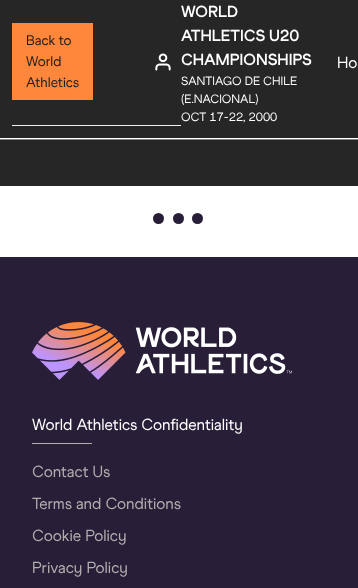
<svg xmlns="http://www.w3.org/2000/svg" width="358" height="588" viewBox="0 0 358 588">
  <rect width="100%" height="100%" fill="#fff"/>
  <path d="M0 0h358v138H0z" fill="#262626"/>
  <path d="M12 125h169v1H12z" fill="#f0f0f0"/>
  <path d="M12 23h81v77H12z" fill="#ff873c"/>
  <image x="155" y="53" width="16" height="18" href="img/1.png"/>
  <path d="M0 140h358v46H0z" fill="#262626"/>
  <path d="M0 139h358v1H0z" fill="#818181"/>
  <circle cx="158.5" cy="218.5" r="5.5" fill="#281e37"/>
  <circle cx="178.5" cy="218.5" r="5.5" fill="#281e37"/>
  <circle cx="197.5" cy="218.5" r="5.5" fill="#281e37"/>
  <path d="M0 257h358v331H0z" fill="#281e37"/>
  <image x="32" y="322" width="260" height="58" href="img/2.png"/>
  <path d="M32 443h60v1H32z" fill="#b2adad"/>
  <g font-family="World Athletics" font-size="14" fill="#1e1e1e">
    <text x="26" y="45">Back to</text>
    <text x="26" y="66">World</text>
    <text x="26" y="87">Athletics</text>
  </g>
  <g font-family="World Athletics" font-size="16" font-weight="bold" fill="#fff">
    <text x="181" y="17">WORLD</text>
    <text x="181" y="41">ATHLETICS U20</text>
    <text x="181" y="65">CHAMPIONSHIPS</text>
  </g>
  <g font-family="World Athletics" font-size="12" fill="#fff">
    <text x="181" y="85">SANTIAGO DE CHILE</text>
    <text x="181" y="103">(E.NACIONAL)</text>
    <text x="181" y="121">OCT 17-22, 2000</text>
  </g>
  <g font-family="World Athletics" font-size="16" fill="#fff">
    <text x="337" y="68">Ho</text>
    <text x="32" y="430">World Athletics Confidentiality</text>
  </g>
  <g font-family="World Athletics" font-size="16" fill="#b2adad">
    <text x="32" y="477">Contact Us</text>
    <text x="32" y="509">Terms and Conditions</text>
    <text x="32" y="541">Cookie Policy</text>
    <text x="32" y="573">Privacy Policy</text>
  </g>
</svg>
